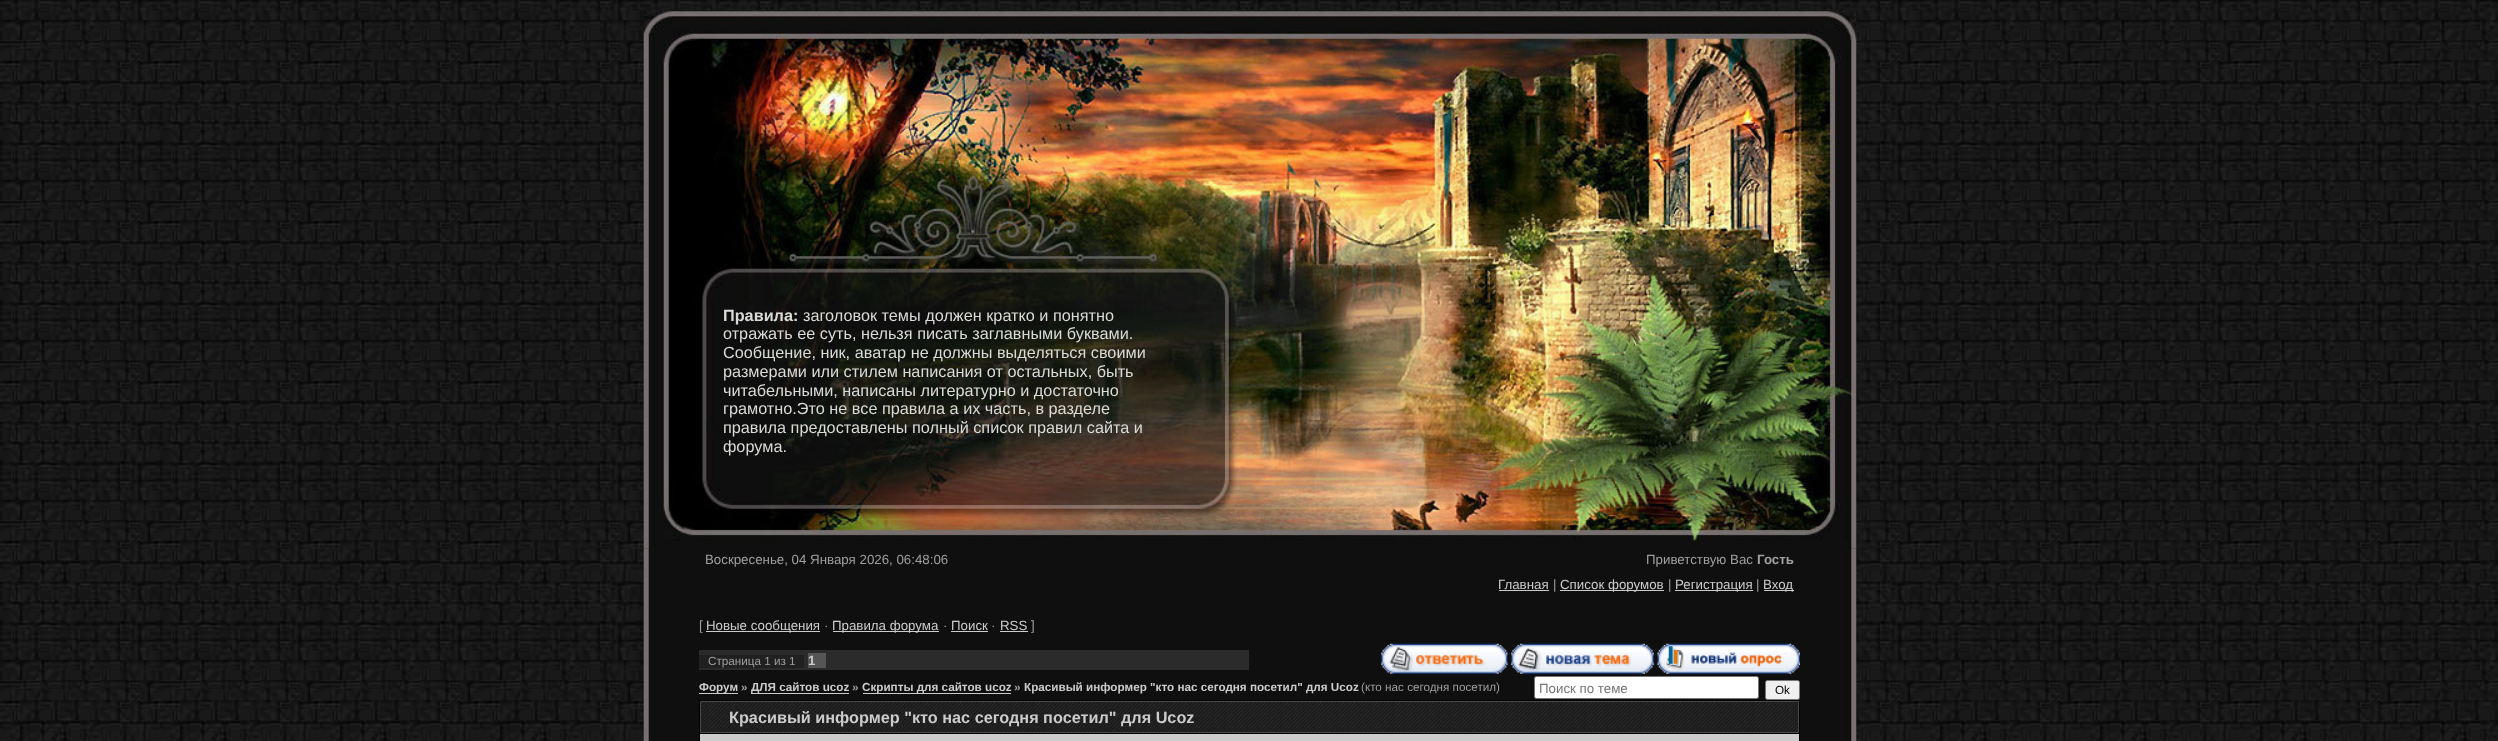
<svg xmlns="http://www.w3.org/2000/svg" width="2498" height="741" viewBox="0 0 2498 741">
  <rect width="100%" height="100%" fill="#fff"/>
  <image x="0" y="0" width="2498" height="741" href="img/1.png"/>
  <image x="643" y="10" width="1214" height="539" href="img/2.png"/>
  <image x="643" y="548" width="1214" height="193" href="img/3.png"/>
  <path d="M1499 590h50v1H1499z" fill="#ccc"/>
  <path d="M1560 590h104v1H1560z" fill="#ccc"/>
  <path d="M1675 590h78v1H1675z" fill="#ccc"/>
  <path d="M1764 590h30v1H1764z" fill="#ccc"/>
  <path d="M706 631h114v1H706z" fill="#ccc"/>
  <path d="M833 631h106v1H833z" fill="#ccc"/>
  <path d="M951 631h37v1H951z" fill="#ccc"/>
  <path d="M1000 631h28v1H1000z" fill="#ccc"/>
  <path d="M699 650h550v20H699z" fill="#2b2b2b"/>
  <path d="M699 655h105v13H699z" fill="#202020"/>
  <path d="M808 653h18v15H808z" fill="#555"/>
  <image x="1381" y="643" width="127" height="31" href="img/4.png"/>
  <image x="1511" y="643" width="143" height="31" href="img/5.png"/>
  <image x="1657" y="643" width="143" height="31" href="img/6.png"/>
  <path d="M699 693h39v1H699z" fill="#ccc"/>
  <path d="M751 693h98v1H751z" fill="#ccc"/>
  <path d="M863 693h148v1H863z" fill="#ccc"/>
  <rect x="1534.5" y="676.5" width="224" height="22" rx="2" fill="#fff" stroke="#767676"/>
  <rect x="1765.5" y="680.5" width="34" height="19" rx="2" fill="#efefef" stroke="#767676"/>
  <path d="M699 700h1101v41H699z" fill="#000"/>
  <image x="701" y="702" width="1097" height="30" href="img/7.png"/>
  <path d="M700.5 701.5h1098v31H700.5z" fill="none" stroke="#494949"/>
  <path d="M700 734h1099v7H700z" fill="#ccc"/>
  <text x="723" y="321" font-family="Liberation Sans" font-size="16.25" font-weight="bold" fill="#dadbd7">Правила:</text>
  <g font-family="Liberation Sans" font-size="16.25" fill="#dadbd7">
    <text x="803" y="321">заголовок темы должен кратко и понятно</text>
    <text x="723" y="339">отражать ее суть, нельзя писать заглавными буквами.</text>
    <text x="723" y="358">Сообщение, ник, аватар не должны выделяться своими</text>
    <text x="723" y="377">размерами или стилем написания от остальных, быть</text>
    <text x="723" y="396">читабельными, написаны литературно и достаточно</text>
    <text x="723" y="414">грамотно.Это не все правила а их часть, в разделе</text>
    <text x="723" y="433">правила предоставлены полный список правил сайта и</text>
    <text x="723" y="452">форума.</text>
  </g>
  <g font-family="Liberation Sans" font-size="13.3" fill="#9f9f9f">
    <text x="705" y="564">Воскресенье, 04 Января 2026, 06:48:06</text>
    <text x="1646" y="564">Приветствую Вас</text>
  </g>
  <text x="1757" y="564" font-family="Liberation Sans" font-size="13.3" font-weight="bold" fill="#9f9f9f">Гость</text>
  <text x="1498" y="589" font-family="Liberation Sans" font-size="13.3" fill="#ccc">Главная</text>
  <text x="1553" y="589" font-family="Liberation Sans" font-size="13.3" fill="#9f9f9f">|</text>
  <text x="1560" y="589" font-family="Liberation Sans" font-size="13.3" fill="#ccc">Список форумов</text>
  <text x="1668" y="589" font-family="Liberation Sans" font-size="13.3" fill="#9f9f9f">|</text>
  <text x="1675" y="589" font-family="Liberation Sans" font-size="13.3" fill="#ccc">Регистрация</text>
  <text x="1756" y="589" font-family="Liberation Sans" font-size="13.3" fill="#9f9f9f">|</text>
  <text x="1763" y="589" font-family="Liberation Sans" font-size="13.3" fill="#ccc">Вход</text>
  <text x="699" y="630" font-family="Liberation Sans" font-size="13.3" fill="#9f9f9f">[</text>
  <text x="706" y="630" font-family="Liberation Sans" font-size="13.3" fill="#ccc">Новые сообщения</text>
  <text x="824" y="630" font-family="Liberation Sans" font-size="13.3" fill="#9f9f9f">·</text>
  <text x="832" y="630" font-family="Liberation Sans" font-size="13.3" fill="#ccc">Правила форума</text>
  <text x="943" y="630" font-family="Liberation Sans" font-size="13.3" fill="#9f9f9f">·</text>
  <text x="951" y="630" font-family="Liberation Sans" font-size="13.3" fill="#ccc">Поиск</text>
  <text x="991" y="630" font-family="Liberation Sans" font-size="13.3" fill="#9f9f9f">·</text>
  <text x="1000" y="630" font-family="Liberation Sans" font-size="13.3" fill="#ccc">RSS</text>
  <text x="1031" y="630" font-family="Liberation Sans" font-size="13.3" fill="#9f9f9f">]</text>
  <text x="708" y="665" font-family="Liberation Sans" font-size="11.7" fill="#9f9f9f">Страница 1 из 1</text>
  <text x="808" y="665" font-family="Liberation Sans" font-size="13.3" font-weight="bold" fill="#ccc">1</text>
  <text x="699" y="691" font-family="Liberation Sans" font-size="11.7" font-weight="bold" fill="#ccc">Форум</text>
  <text x="741" y="691" font-family="Liberation Sans" font-size="11.7" font-weight="bold" fill="#9f9f9f">»</text>
  <text x="751" y="691" font-family="Liberation Sans" font-size="11.7" font-weight="bold" fill="#ccc">ДЛЯ сайтов ucoz</text>
  <text x="852" y="691" font-family="Liberation Sans" font-size="11.7" font-weight="bold" fill="#9f9f9f">»</text>
  <text x="862" y="691" font-family="Liberation Sans" font-size="11.7" font-weight="bold" fill="#ccc">Скрипты для сайтов ucoz</text>
  <text x="1014" y="691" font-family="Liberation Sans" font-size="11.7" font-weight="bold" fill="#9f9f9f">»</text>
  <text x="1024" y="691" font-family="Liberation Sans" font-size="11.7" font-weight="bold" fill="#ccc">Красивый информер "кто нас сегодня посетил" для Ucoz</text>
  <text x="1361" y="691" font-family="Liberation Sans" font-size="11.7" fill="#9f9f9f">(кто нас сегодня посетил)</text>
  <text x="1539" y="693" font-family="Liberation Sans" font-size="13.3" fill="#757575">Поиск по теме</text>
  <text x="1775" y="694" font-family="Liberation Sans" font-size="11.7" fill="#000">Ok</text>
  <text x="729" y="723" font-family="Liberation Sans" font-size="16.25" font-weight="bold" fill="#ccc">Красивый информер "кто нас сегодня посетил" для Ucoz</text>
</svg>
